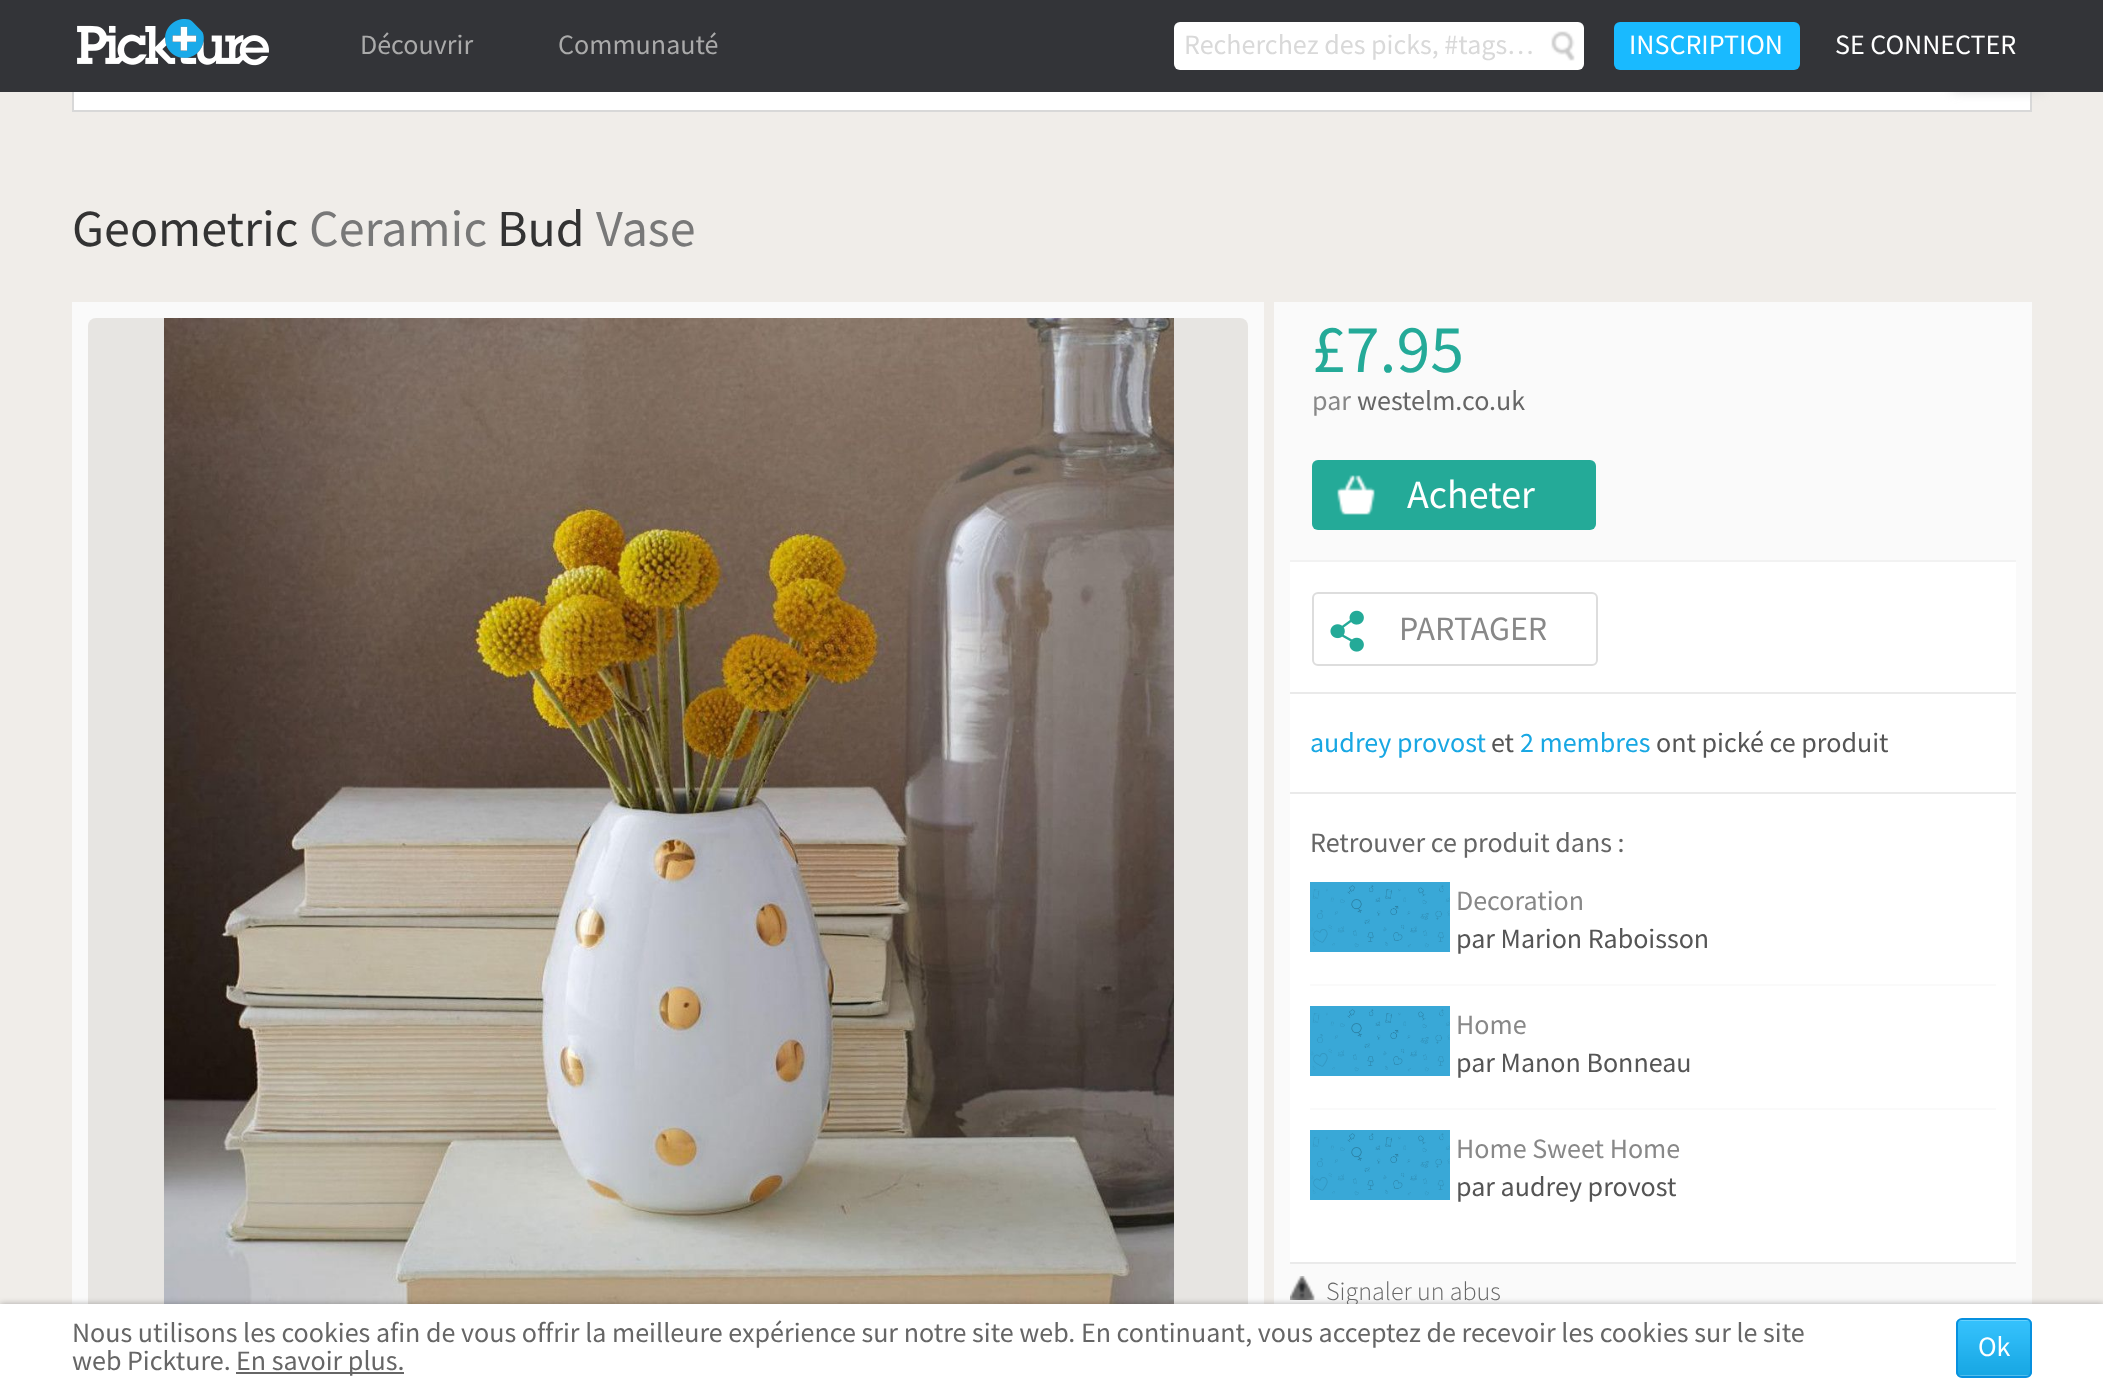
<svg xmlns="http://www.w3.org/2000/svg" width="2103" height="1392" viewBox="0 0 2103 1392">
  <rect width="100%" height="100%" fill="#f0ede9"/>
  <path d="M74 92h1956v18H74z" fill="#fff"/>
  <path d="M73 39h1958v72H73z" fill="none" stroke="#d8d8d8" stroke-width="2"/>
  <path d="M1952 0h90v90H1952z" fill="#ccc" filter="blur(6px)"/>
  <path d="M0 0h2103v92H0z" fill="#333438"/>
  <image x="77" y="19" width="192" height="47" href="img/1.png"/>
  <rect x="1174" y="22" width="410" height="48" rx="6" fill="#fff"/>
  <image x="1551" y="31" width="24" height="30" href="img/2.png"/>
  <rect x="1614" y="22" width="186" height="48" rx="6" fill="#19baff"/>
  <path d="M72 302h1192v1002H72z" fill="#fafafa"/>
  <rect x="88" y="318" width="1160" height="1010" rx="8" fill="#e7e5e2"/>
  <image x="164" y="318" width="1010" height="986" href="img/3.png"/>
  <path d="M1274 302h758v1002H1274z" fill="#fafafa"/>
  <rect x="1312" y="460" width="284" height="70" rx="6" fill="#24aa98"/>
  <image x="1337" y="475" width="38" height="40" href="img/4.png"/>
  <path d="M1290 560h726v2H1290z" fill="#f2f2f2"/>
  <path d="M1290 562h726v130H1290z" fill="#fff"/>
  <path d="M1290 692h726v2H1290z" fill="#eaeaea"/>
  <image x="1330" y="610" width="34" height="42" href="img/5.png"/>
  <rect x="1313" y="593" width="284" height="72" rx="5" fill="none" stroke="#ddd" stroke-width="2"/>
  <path d="M1290 694h726v98H1290z" fill="#fff"/>
  <path d="M1290 792h726v2H1290z" fill="#eaeaea"/>
  <path d="M1290 794h726v468H1290z" fill="#fff"/>
  <path d="M1290 1262h726v2H1290z" fill="#eaeaea"/>
  <path d="M1310 984h686v2H1310z" fill="#fafafa"/>
  <image x="1310" y="882" width="140" height="70" href="img/6.png"/>
  <path d="M1310 1108h686v2H1310z" fill="#fafafa"/>
  <image x="1310" y="1006" width="140" height="70" href="img/6.png"/>
  <image x="1310" y="1130" width="140" height="70" href="img/6.png"/>
  <image x="1290" y="1276" width="25" height="24" href="img/7.png"/>
  <path d="M0 1304h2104v88H0z" fill="#0000004d" filter="blur(3px)"/>
  <g font-family="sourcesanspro" font-size="28" fill="#aaa">
    <text x="360" y="54">Découvrir</text>
    <text x="558" y="54">Communauté</text>
  </g>
  <text x="1184" y="54" font-family="sourcesanspro" font-size="28" fill="#d9d9d9">Recherchez des picks, #tags…</text>
  <g font-family="sourcesanspro" font-size="28" fill="#fff">
    <text x="1629" y="54">INSCRIPTION</text>
    <text x="1835" y="54">SE CONNECTER</text>
  </g>
  <text x="72" y="246" font-family="sourcesanspro" font-size="52" fill="#333">Geometric</text>
  <text x="309" y="246" font-family="sourcesanspro" font-size="52" fill="#787878">Ceramic</text>
  <text x="497" y="246" font-family="sourcesanspro" font-size="52" fill="#333">Bud</text>
  <text x="596" y="246" font-family="sourcesanspro" font-size="52" fill="#787878">Vase</text>
  <text x="1312" y="372" font-family="sourcesanspro" font-size="68" fill="#24aa98">£7.95</text>
  <text x="1312" y="410" font-family="sourcesanspro" font-size="28" fill="#888">par</text>
  <text x="1357" y="410" font-family="sourcesanspro" font-size="28" fill="#666">westelm.co.uk</text>
  <text x="1407" y="508" font-family="sourcesanspro" font-size="40" fill="#fff">Acheter</text>
  <text x="1399" y="640" font-family="sourcesanspro" font-size="34" fill="#888">PARTAGER</text>
  <text x="1310" y="752" font-family="sourcesanspro" font-size="28" fill="#18a7e3">audrey provost</text>
  <text x="1491" y="752" font-family="sourcesanspro" font-size="28" fill="#555">et</text>
  <text x="1520" y="752" font-family="sourcesanspro" font-size="28" fill="#18a7e3">2 membres</text>
  <text x="1656" y="752" font-family="sourcesanspro" font-size="28" fill="#555">ont pické ce produit</text>
  <text x="1310" y="852" font-family="sourcesanspro" font-size="28" fill="#666">Retrouver ce produit dans :</text>
  <text x="1456" y="910" font-family="sourcesanspro" font-size="28" fill="#888">Decoration</text>
  <text x="1456" y="948" font-family="sourcesanspro" font-size="28" fill="#555">par Marion Raboisson</text>
  <text x="1456" y="1034" font-family="sourcesanspro" font-size="28" fill="#888">Home</text>
  <text x="1456" y="1072" font-family="sourcesanspro" font-size="28" fill="#555">par Manon Bonneau</text>
  <text x="1456" y="1158" font-family="sourcesanspro" font-size="28" fill="#888">Home Sweet Home</text>
  <text x="1456" y="1196" font-family="sourcesanspro" font-size="28" fill="#555">par audrey provost</text>
  <text x="1326" y="1300" font-family="sourcesanspro" font-size="26" font-weight="300" fill="#666">Signaler un abus</text>
  <path d="M0 1304h2103v88H0z" fill="#fff"/>
  <g font-family="sourcesanspro" font-size="28" fill="#666">
    <text x="72" y="1342">Nous utilisons les cookies afin de vous offrir la meilleure expérience sur notre site web. En continuant, vous acceptez de recevoir les cookies sur le site</text>
    <text x="72" y="1370">web Pickture.</text>
  </g>
  <path d="M236 1372h168v2H236z" fill="#666"/>
  <text x="236" y="1370" font-family="sourcesanspro" font-size="28" fill="#666">En savoir plus.</text>
  <image x="1956" y="1319" width="76" height="58" href="img/8.png"/>
  <rect x="1957" y="1319" width="74" height="58" rx="5" fill="none" stroke="#0790df" stroke-width="2"/>
  <text x="1978" y="1356" font-family="sourcesanspro" font-size="28" fill="#fff">Ok</text>
</svg>
